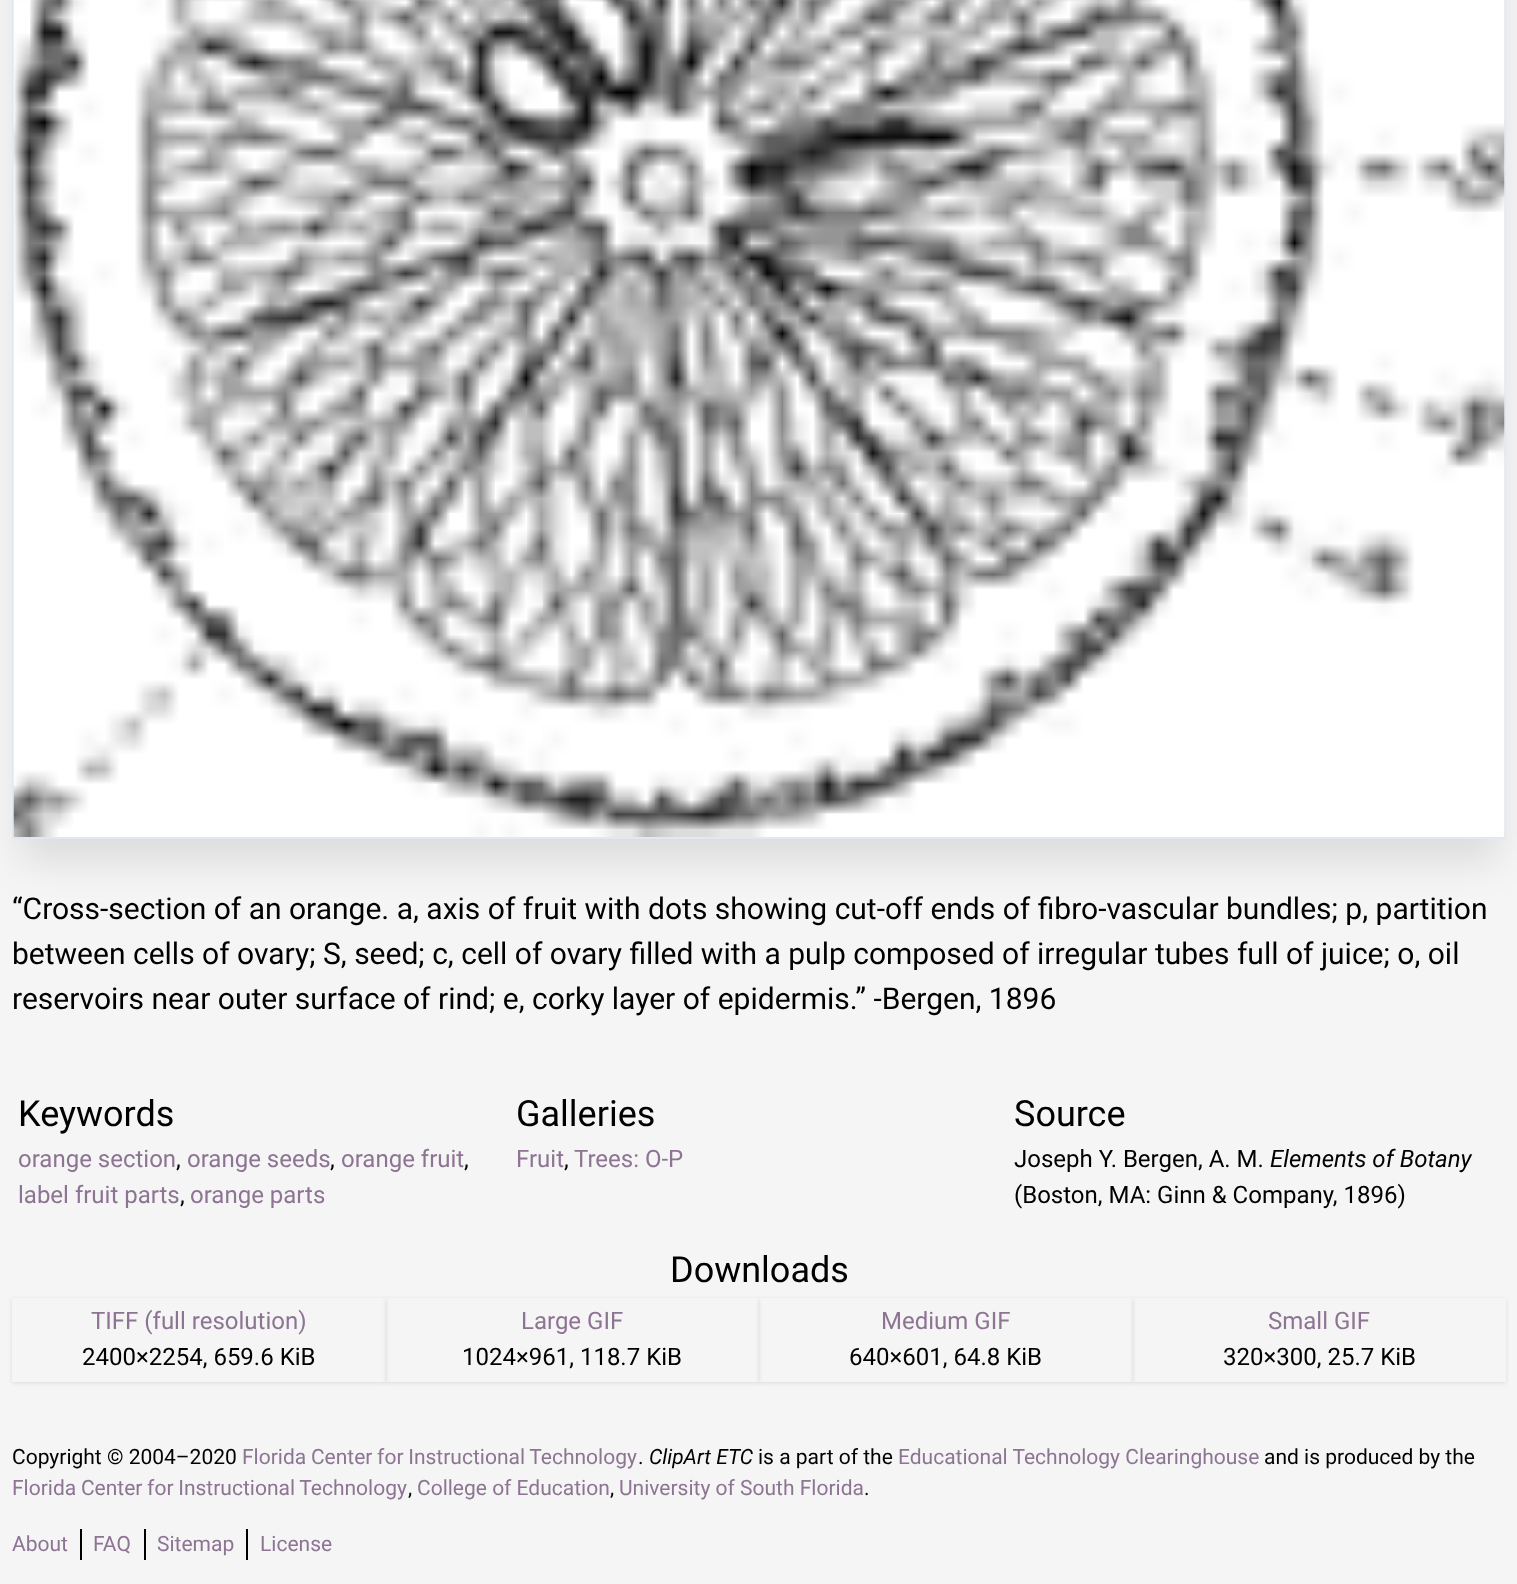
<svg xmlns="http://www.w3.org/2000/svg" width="1517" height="1584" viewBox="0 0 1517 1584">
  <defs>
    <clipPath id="clip1"><path d="M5 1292H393V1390H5ZM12 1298H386V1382H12Z" clip-rule="evenodd"/></clipPath>
    <clipPath id="clip2"><path d="M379 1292H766V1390H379ZM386 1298H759V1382H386Z" clip-rule="evenodd"/></clipPath>
    <clipPath id="clip3"><path d="M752 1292H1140V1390H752ZM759 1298H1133V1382H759Z" clip-rule="evenodd"/></clipPath>
    <clipPath id="clip4"><path d="M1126 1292H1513V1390H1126ZM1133 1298H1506V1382H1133Z" clip-rule="evenodd"/></clipPath>
  </defs>
  <rect width="100%" height="100%" fill="#f5f5f5"/>
  <path d="M20 -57h1479v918H20z" fill="#0000001a" filter="blur(19px)"/>
  <path d="M13 -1h1492v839H13z" fill="none" stroke="#e2e8f0" stroke-width="2"/>
  <image x="13" y="0" width="1492" height="837" href="img/1.png"/>
  <g clip-path="url(#clip1)">
    <path d="M12 1299h374v84H12z" fill="#0000001a" filter="blur(2px)"/>
  </g>
  <g clip-path="url(#clip2)">
    <path d="M386 1299h373v84H386z" fill="#0000001a" filter="blur(2px)"/>
  </g>
  <g clip-path="url(#clip3)">
    <path d="M759 1299h374v84H759z" fill="#0000001a" filter="blur(2px)"/>
  </g>
  <g clip-path="url(#clip4)">
    <path d="M1133 1299h373v84H1133z" fill="#0000001a" filter="blur(2px)"/>
  </g>
  <path d="M80 1529h2v31H80z" fill="#000"/>
  <path d="M144 1529h2v31H144z" fill="#000"/>
  <path d="M246 1529h2v31H246z" fill="#000"/>
  <g font-family="Roboto" font-size="30" fill="#000">
    <text x="12" y="919">“Cross-section of an orange. a, axis of fruit with dots showing cut-off ends of fibro-vascular bundles; p, partition</text>
    <text x="12" y="964">between cells of ovary; S, seed; c, cell of ovary filled with a pulp composed of irregular tubes full of juice; o, oil</text>
    <text x="12" y="1009">reservoirs near outer surface of rind; e, corky layer of epidermis.” -Bergen, 1896</text>
  </g>
  <text x="18" y="1126" font-family="Roboto" font-size="36" fill="#000">Keywords</text>
  <text x="18" y="1167" font-family="Roboto" font-size="24" fill="#8d7493">orange section</text>
  <text x="176" y="1167" font-family="Roboto" font-size="24" fill="#000">,</text>
  <text x="187" y="1167" font-family="Roboto" font-size="24" fill="#8d7493">orange seeds</text>
  <text x="330" y="1167" font-family="Roboto" font-size="24" fill="#000">,</text>
  <text x="341" y="1167" font-family="Roboto" font-size="24" fill="#8d7493">orange fruit</text>
  <text x="464" y="1167" font-family="Roboto" font-size="24" fill="#000">,</text>
  <text x="18" y="1203" font-family="Roboto" font-size="24" fill="#8d7493">label fruit parts</text>
  <text x="180" y="1203" font-family="Roboto" font-size="24" fill="#000">,</text>
  <text x="190" y="1203" font-family="Roboto" font-size="24" fill="#8d7493">orange parts</text>
  <text x="516" y="1126" font-family="Roboto" font-size="36" fill="#000">Galleries</text>
  <text x="516" y="1167" font-family="Roboto" font-size="24" fill="#8d7493">Fruit</text>
  <text x="564" y="1167" font-family="Roboto" font-size="24" fill="#000">,</text>
  <text x="574" y="1167" font-family="Roboto" font-size="24" fill="#8d7493">Trees: O-P</text>
  <text x="1014" y="1126" font-family="Roboto" font-size="36" fill="#000">Source</text>
  <text x="1014" y="1167" font-family="Roboto" font-size="24" fill="#000">Joseph Y. Bergen, A. M.</text>
  <text x="1270" y="1167" font-family="Roboto" font-size="24" font-style="italic" fill="#000">Elements of Botany</text>
  <text x="1014" y="1203" font-family="Roboto" font-size="24" fill="#000">(Boston, MA: Ginn &amp; Company, 1896)</text>
  <text x="670" y="1282" font-family="Roboto" font-size="36" fill="#000">Downloads</text>
  <text x="91" y="1329" font-family="Roboto" font-size="24" fill="#8d7493">TIFF (full resolution)</text>
  <text x="82" y="1365" font-family="Roboto" font-size="24" fill="#000">2400×2254, 659.6 KiB</text>
  <text x="521" y="1329" font-family="Roboto" font-size="24" fill="#8d7493">Large GIF</text>
  <text x="462" y="1365" font-family="Roboto" font-size="24" fill="#000">1024×961, 118.7 KiB</text>
  <text x="881" y="1329" font-family="Roboto" font-size="24" fill="#8d7493">Medium GIF</text>
  <text x="849" y="1365" font-family="Roboto" font-size="24" fill="#000">640×601, 64.8 KiB</text>
  <text x="1268" y="1329" font-family="Roboto" font-size="24" fill="#8d7493">Small GIF</text>
  <text x="1223" y="1365" font-family="Roboto" font-size="24" fill="#000">320×300, 25.7 KiB</text>
  <text x="12" y="1464" font-family="Roboto" font-size="21" fill="#000">Copyright © 2004–2020</text>
  <text x="242" y="1464" word-spacing="-0.5" font-family="Roboto" font-size="21" fill="#8d7493">Florida Center for Instructional Technology</text>
  <text x="638" y="1464" font-family="Roboto" font-size="21" fill="#000">.</text>
  <text x="649" y="1464" font-family="Roboto" font-size="21" font-style="italic" fill="#000">ClipArt ETC</text>
  <text x="758" y="1464" font-family="Roboto" font-size="21" fill="#000">is a part of the</text>
  <text x="898" y="1464" font-family="Roboto" font-size="21" fill="#8d7493">Educational Technology Clearinghouse</text>
  <text x="1264" y="1464" font-family="Roboto" font-size="21" fill="#000">and is produced by the</text>
  <text x="12" y="1495" word-spacing="-0.5" font-family="Roboto" font-size="21" fill="#8d7493">Florida Center for Instructional Technology</text>
  <text x="408" y="1495" font-family="Roboto" font-size="21" fill="#000">,</text>
  <text x="417" y="1495" font-family="Roboto" font-size="21" fill="#8d7493">College of Education</text>
  <text x="610" y="1495" font-family="Roboto" font-size="21" fill="#000">,</text>
  <text x="619" y="1495" font-family="Roboto" font-size="21" fill="#8d7493">University of South Florida</text>
  <text x="864" y="1495" font-family="Roboto" font-size="21" fill="#000">.</text>
  <g font-family="Roboto" font-size="21" fill="#8d7493">
    <text x="12" y="1551">About</text>
    <text x="93" y="1551">FAQ</text>
    <text x="157" y="1551">Sitemap</text>
    <text x="260" y="1551">License</text>
  </g>
</svg>
